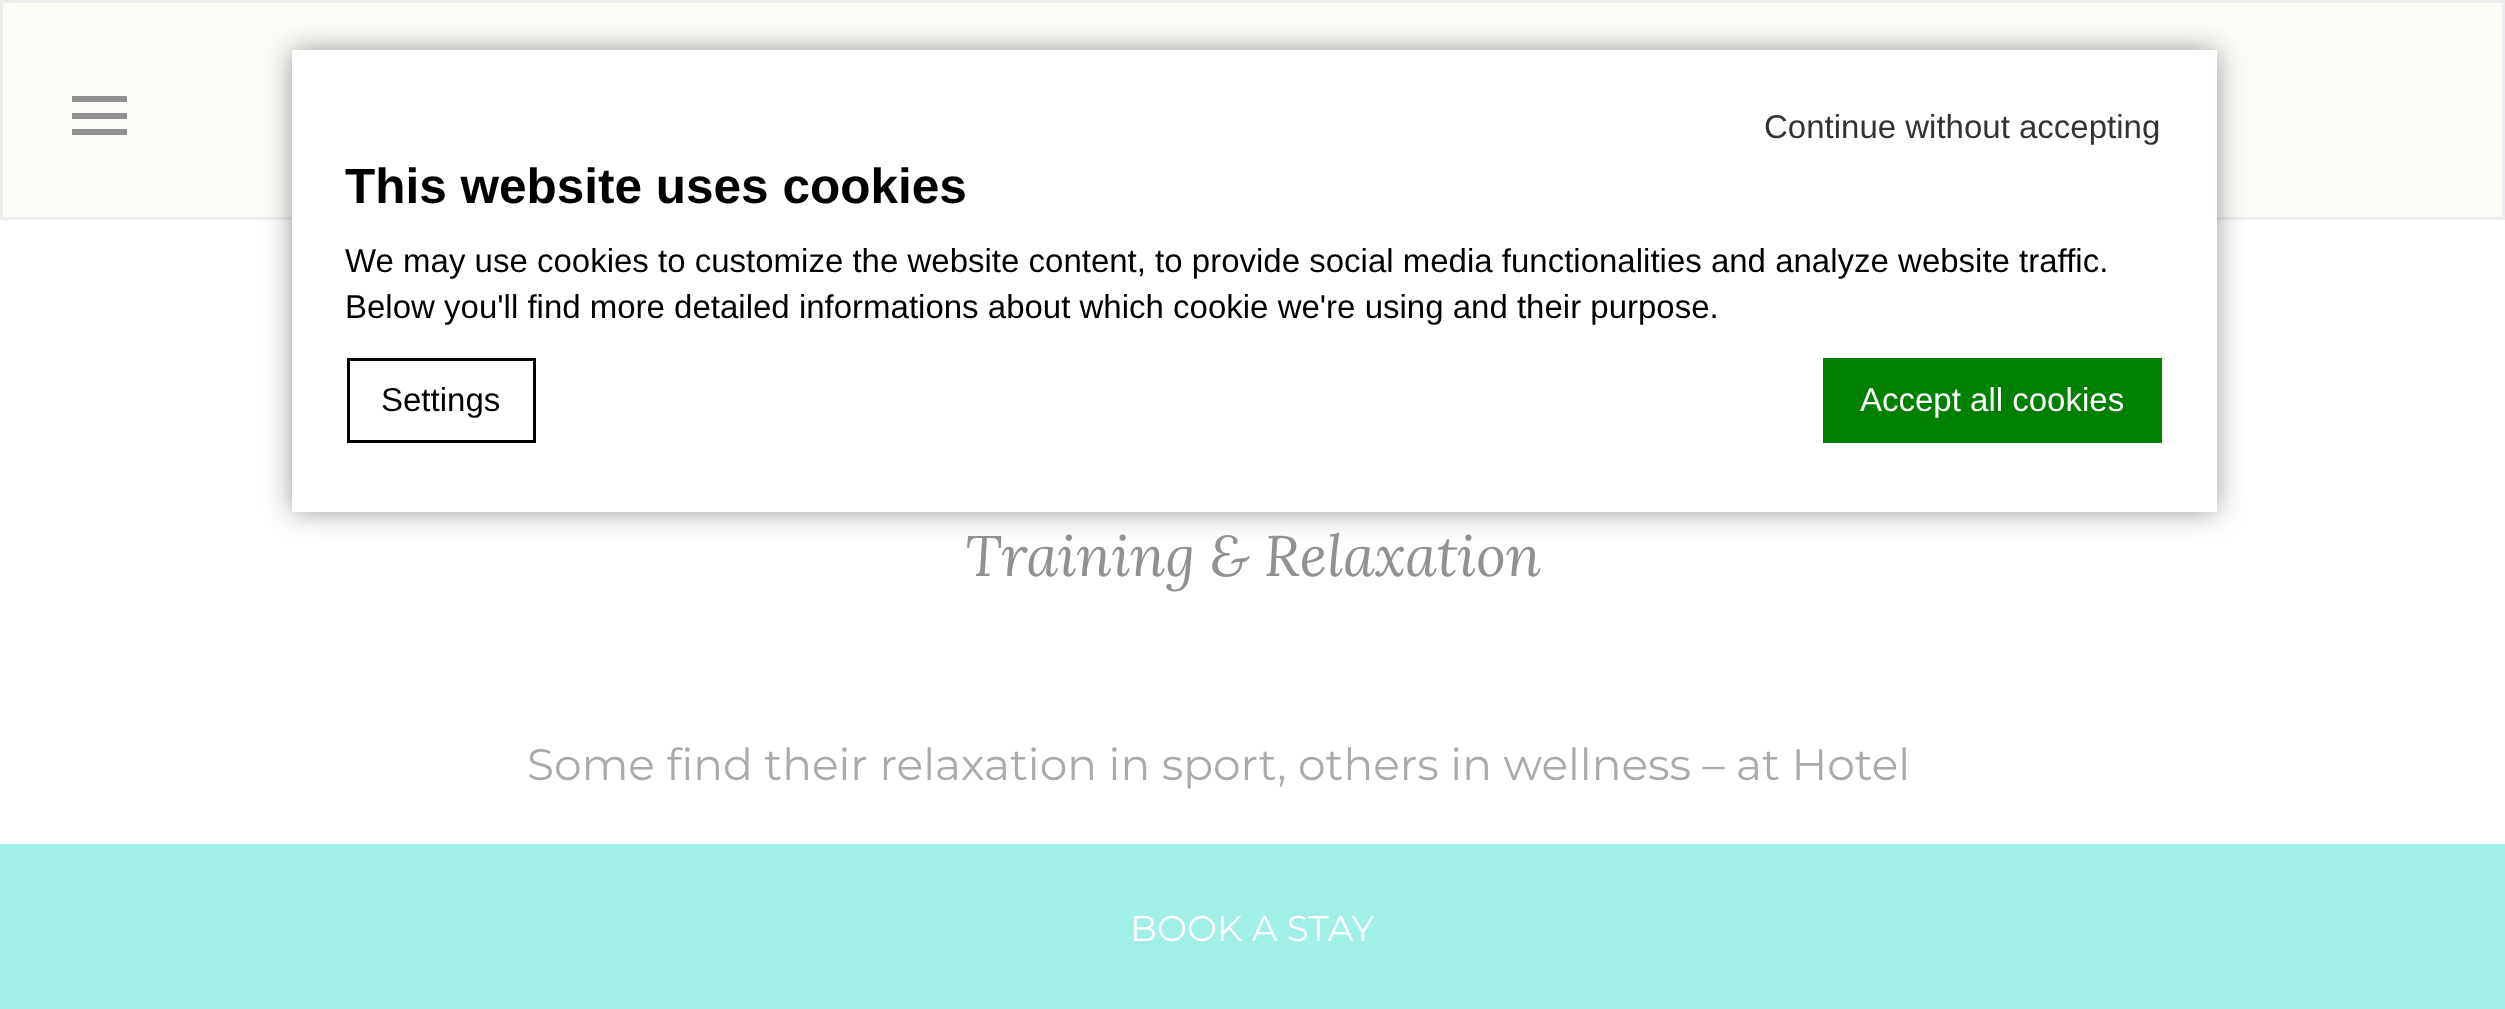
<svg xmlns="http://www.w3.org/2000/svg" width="2505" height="1009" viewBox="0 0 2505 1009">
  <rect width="100%" height="100%" fill="#fff"/>
  <path d="M1.5 1.5h2502v217H1.5z" fill="#fdfcf6" stroke="#eee" stroke-width="3"/>
  <image x="1180" y="49" width="106" height="1" href="img/1.png"/>
  <path d="M72 113h55v6H72z" fill="#919191"/>
  <path d="M72 96h55v6H72z" fill="#919191"/>
  <path d="M72 129h55v6H72z" fill="#919191"/>
  <path d="M292 50h1925v462H292z" fill="#00000066" filter="blur(14px)"/>
  <path d="M292 50h1925v462H292z" fill="#fff"/>
  <path d="M348.5 359.5h186v82H348.5z" fill="none" stroke="#000" stroke-width="3"/>
  <path d="M1823 358h339v85H1823z" fill="#008000"/>
  <path d="M0 844h2505v165H0z" fill="#a0f0e8"/>
  <text x="1764" y="138" font-family="Liberation Sans" font-size="33" fill="#333">Continue without accepting</text>
  <text x="345" y="203" font-family="Liberation Sans" font-size="49.5" font-weight="bold" fill="#000">This website uses cookies</text>
  <g font-family="Liberation Sans" font-size="33" fill="#000">
    <text x="345" y="272">We may use cookies to customize the website content, to provide social media functionalities and analyze website traffic.</text>
    <text x="345" y="318">Below you'll find more detailed informations about which cookie we're using and their purpose.</text>
    <text x="381" y="411">Settings</text>
  </g>
  <text x="1860" y="411" font-family="Liberation Sans" font-size="33" fill="#fff">Accept all cookies</text>
  <text x="965" y="576" font-family="Lora" font-size="57.25" font-style="italic" fill="#919191">Training &amp; Relaxation</text>
  <text x="527" y="780" font-family="Montserrat" font-size="44" fill="#aaa">Some find their relaxation in sport, others in wellness – at Hotel</text>
  <text x="1130" y="941" font-family="Montserrat" font-size="35.75" fill="#fff">BOOK A STAY</text>
</svg>
